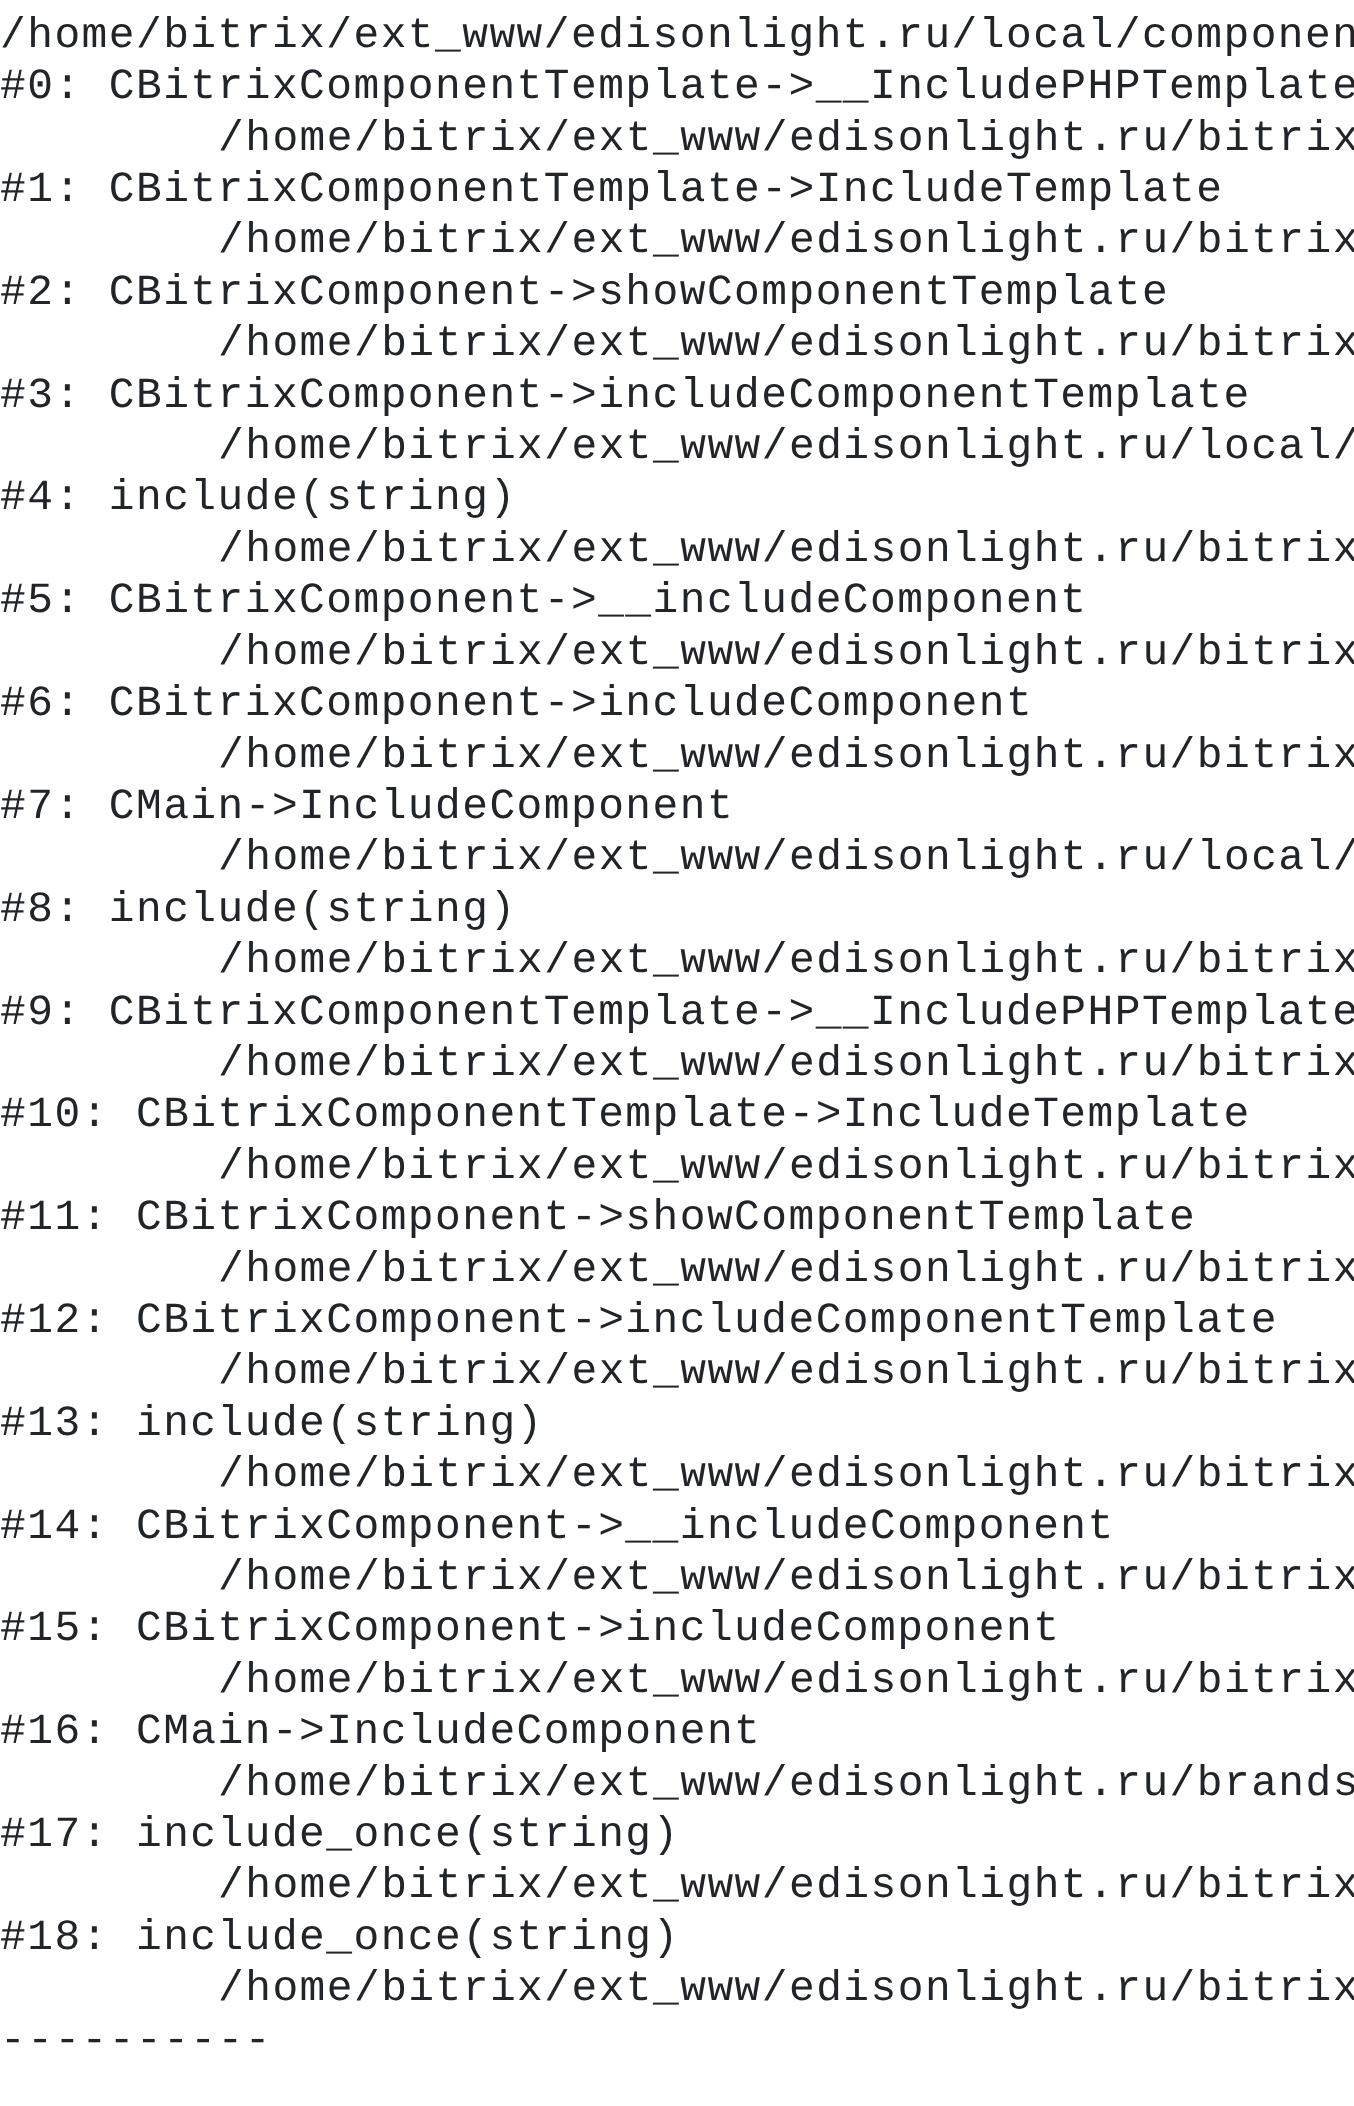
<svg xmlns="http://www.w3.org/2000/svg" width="1354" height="2106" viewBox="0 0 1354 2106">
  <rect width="100%" height="100%" fill="#fff"/>
  <g font-family="Liberation Mono" font-size="42.9" letter-spacing="1.45" fill="#212529">
    <text x="0" y="47">/home/bitrix/ext_www/edisonlight.ru/local/componen</text>
    <text x="0" y="98">#0: CBitrixComponentTemplate-&gt;__IncludePHPTemplate</text>
    <text x="218" y="150">/home/bitrix/ext_www/edisonlight.ru/bitrix</text>
    <text x="0" y="201">#1: CBitrixComponentTemplate-&gt;IncludeTemplate</text>
    <text x="218" y="252">/home/bitrix/ext_www/edisonlight.ru/bitrix</text>
    <text x="0" y="304">#2: CBitrixComponent-&gt;showComponentTemplate</text>
    <text x="218" y="355">/home/bitrix/ext_www/edisonlight.ru/bitrix</text>
    <text x="0" y="407">#3: CBitrixComponent-&gt;includeComponentTemplate</text>
    <text x="218" y="458">/home/bitrix/ext_www/edisonlight.ru/local/</text>
    <text x="0" y="509">#4: include(string)</text>
    <text x="218" y="561">/home/bitrix/ext_www/edisonlight.ru/bitrix</text>
    <text x="0" y="612">#5: CBitrixComponent-&gt;__includeComponent</text>
    <text x="218" y="664">/home/bitrix/ext_www/edisonlight.ru/bitrix</text>
    <text x="0" y="715">#6: CBitrixComponent-&gt;includeComponent</text>
    <text x="218" y="767">/home/bitrix/ext_www/edisonlight.ru/bitrix</text>
    <text x="0" y="818">#7: CMain-&gt;IncludeComponent</text>
    <text x="218" y="869">/home/bitrix/ext_www/edisonlight.ru/local/</text>
    <text x="0" y="921">#8: include(string)</text>
    <text x="218" y="972">/home/bitrix/ext_www/edisonlight.ru/bitrix</text>
    <text x="0" y="1024">#9: CBitrixComponentTemplate-&gt;__IncludePHPTemplate</text>
    <text x="218" y="1075">/home/bitrix/ext_www/edisonlight.ru/bitrix</text>
    <text x="0" y="1126">#10: CBitrixComponentTemplate-&gt;IncludeTemplate</text>
    <text x="218" y="1178">/home/bitrix/ext_www/edisonlight.ru/bitrix</text>
    <text x="0" y="1229">#11: CBitrixComponent-&gt;showComponentTemplate</text>
    <text x="218" y="1281">/home/bitrix/ext_www/edisonlight.ru/bitrix</text>
    <text x="0" y="1332">#12: CBitrixComponent-&gt;includeComponentTemplate</text>
    <text x="218" y="1383">/home/bitrix/ext_www/edisonlight.ru/bitrix</text>
    <text x="0" y="1435">#13: include(string)</text>
    <text x="218" y="1486">/home/bitrix/ext_www/edisonlight.ru/bitrix</text>
    <text x="0" y="1538">#14: CBitrixComponent-&gt;__includeComponent</text>
    <text x="218" y="1589">/home/bitrix/ext_www/edisonlight.ru/bitrix</text>
    <text x="0" y="1640">#15: CBitrixComponent-&gt;includeComponent</text>
    <text x="218" y="1692">/home/bitrix/ext_www/edisonlight.ru/bitrix</text>
    <text x="0" y="1743">#16: CMain-&gt;IncludeComponent</text>
    <text x="218" y="1795">/home/bitrix/ext_www/edisonlight.ru/brands</text>
    <text x="0" y="1846">#17: include_once(string)</text>
    <text x="218" y="1897">/home/bitrix/ext_www/edisonlight.ru/bitrix</text>
    <text x="0" y="1949">#18: include_once(string)</text>
    <text x="218" y="2000">/home/bitrix/ext_www/edisonlight.ru/bitrix</text>
    <text x="0" y="2052">----------</text>
  </g>
</svg>
